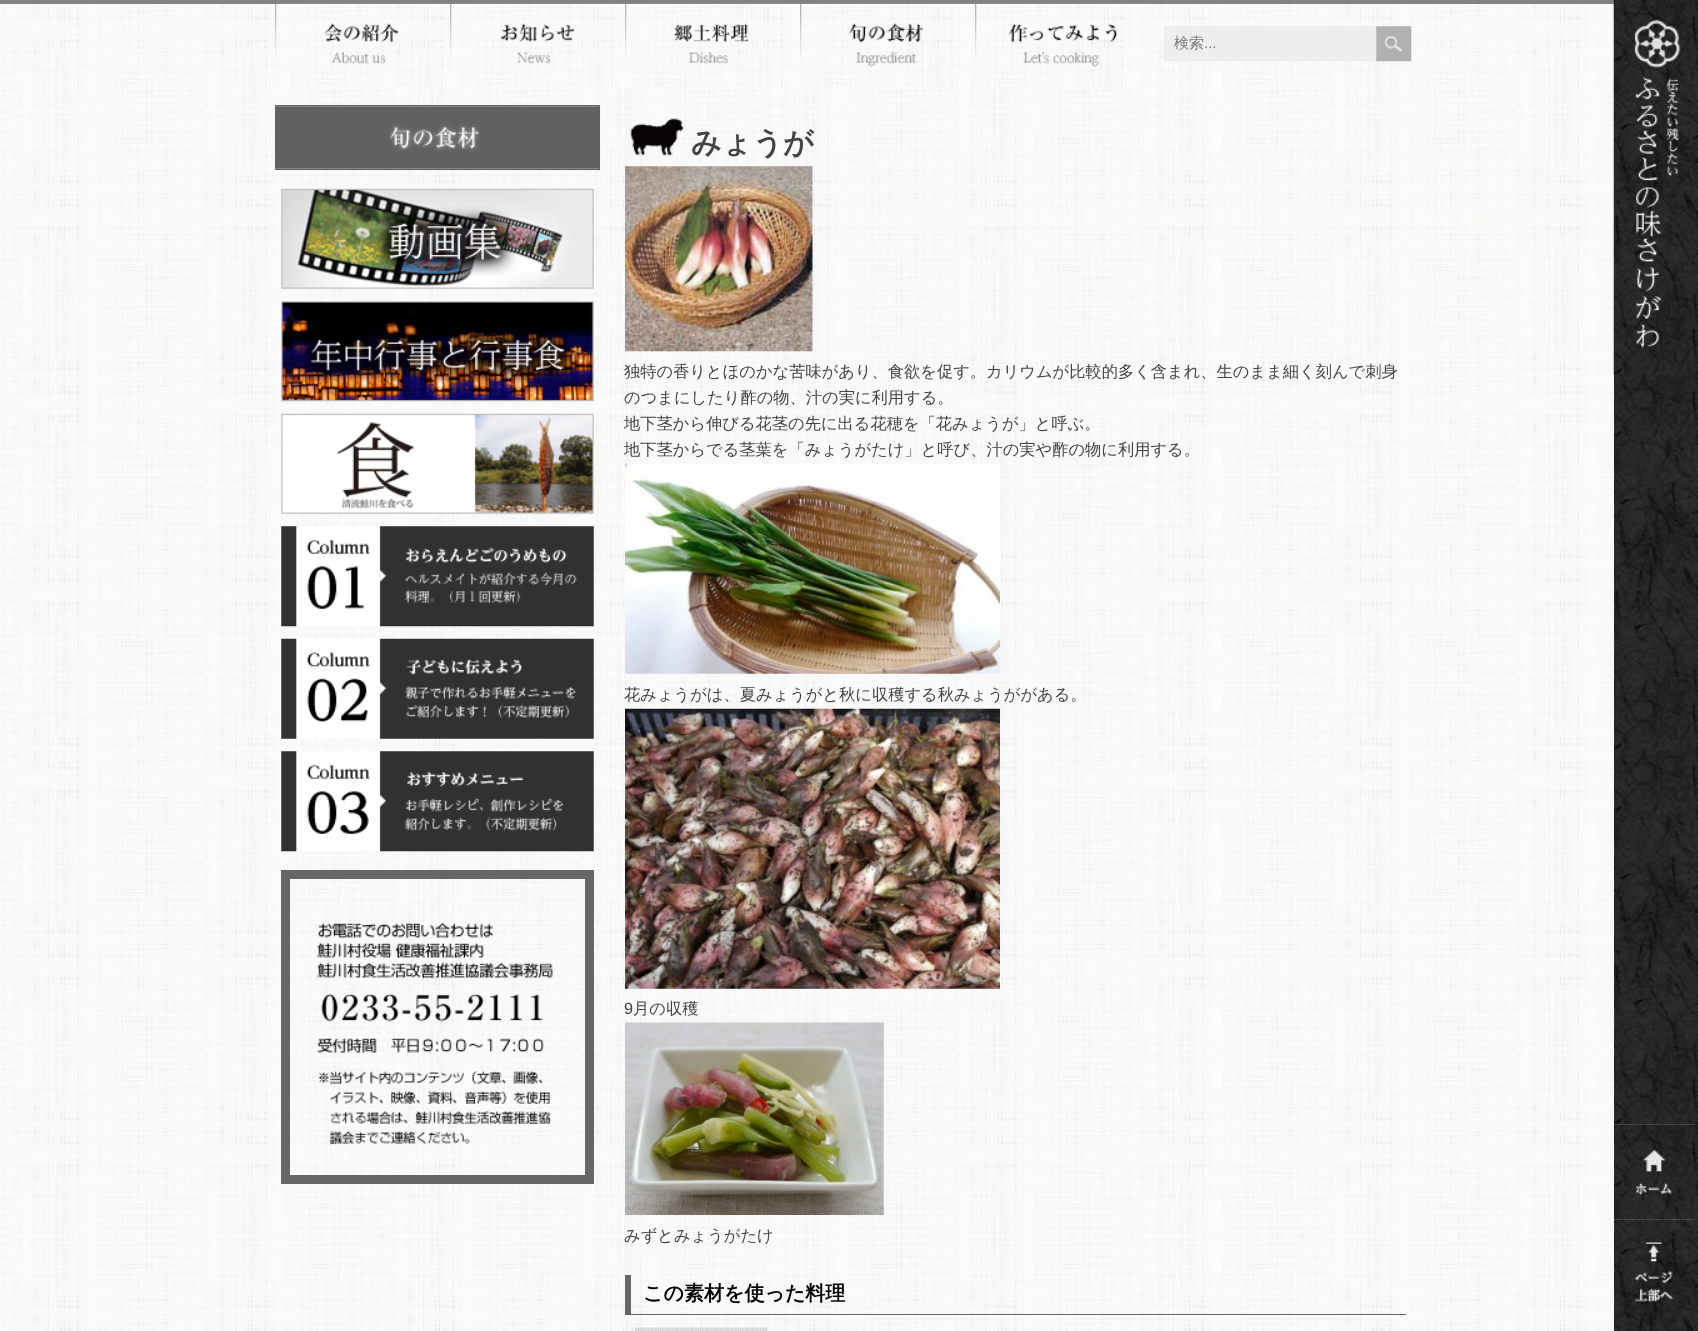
<svg xmlns="http://www.w3.org/2000/svg" width="1698" height="1331" viewBox="0 0 1698 1331">
  <rect width="100%" height="100%" fill="#fff"/>
  <image x="0" y="4" width="1614" height="1327" href="img/1.png"/>
  <path d="M0 0h1614v4H0z" fill="#838383"/>
  <image x="275" y="3" width="175" height="84" href="img/2.png"/>
  <image x="450" y="3" width="175" height="84" href="img/3.png"/>
  <image x="625" y="3" width="175" height="85" href="img/4.png"/>
  <image x="800" y="3" width="175" height="85" href="img/5.png"/>
  <image x="975" y="3" width="175" height="85" href="img/6.png"/>
  <path d="M1164 26h247v35H1164z" fill="#eee"/>
  <image x="1376" y="26" width="36" height="36" href="img/7.png"/>
  <image x="1614" y="0" width="84" height="1331" href="img/8.png"/>
  <image x="1613" y="0" width="83" height="375" href="img/9.png"/>
  <image x="1636" y="1149" width="36" height="47" href="img/10.png"/>
  <path d="M1614 1124h81v1H1614z" fill="#444"/>
  <path d="M1614 1219.5H1695" fill="none" stroke="#666" stroke-width="1.2" stroke-dasharray="1.25 1.25"/>
  <image x="1634" y="1242" width="39" height="60" href="img/11.png"/>
  <image x="275" y="106" width="324" height="63" href="img/12.png"/>
  <path d="M275 105h325v1H275z" fill="#616161"/>
  <path d="M599 105h1v65H599z" fill="#616161"/>
  <path d="M275 169h325v1H275z" fill="#616161"/>
  <image x="281" y="188" width="313" height="101" href="img/13.png"/>
  <image x="281" y="301" width="313" height="101" href="img/14.png"/>
  <image x="281" y="413" width="313" height="101" href="img/15.png"/>
  <image x="281" y="526" width="313" height="101" href="img/16.png"/>
  <image x="281" y="638" width="313" height="101" href="img/17.png"/>
  <image x="281" y="751" width="313" height="101" href="img/18.png"/>
  <image x="317" y="922" width="236" height="223" href="img/19.png"/>
  <path d="M285.5 874.5h304v305H285.5z" fill="none" stroke="#666" stroke-width="9"/>
  <image x="630" y="118" width="54" height="38" href="img/20.png"/>
  <image x="625" y="166" width="188" height="186" href="img/21.png"/>
  <image x="625" y="463" width="375" height="211" href="img/22.png"/>
  <image x="625" y="708" width="375" height="281" href="img/23.png"/>
  <image x="625" y="1022" width="259" height="193" href="img/24.png"/>
  <path d="M625 1314h781v1H625z" fill="#666"/>
  <path d="M625 1275h6v40H625z" fill="#666"/>
  <image x="635" y="1327" width="133" height="4" href="img/25.png"/>
  <text x="1174" y="48" font-family="WenQuanYi Zen Hei" font-size="15" font-weight="500" fill="#7b7b7b">検索</text>
  <text x="1204" y="48" font-family="Liberation Sans" font-size="15" fill="#7b7b7b">...</text>
  <text x="691" y="153" font-family="WenQuanYi Zen Hei" font-size="30" font-weight="bold" fill="#444">みょうが</text>
  <g font-family="WenQuanYi Zen Hei" font-size="16.25" font-weight="500" fill="#444">
    <text x="624" y="377">独特の香りとほのかな苦味があり、食欲を促す。カリウムが比較的多く含まれ、生のまま細く刻んで刺身</text>
    <text x="624" y="403">のつまにしたり酢の物、汁の実に利用する。</text>
    <text x="624" y="429">地下茎から伸びる花茎の先に出る花穂を「花みょうが」と呼ぶ。</text>
    <text x="624" y="455">地下茎からでる茎葉を「みょうがたけ」と呼び、汁の実や酢の物に利用する。</text>
    <text x="624" y="700">花みょうがは、夏みょうがと秋に収穫する秋みょうががある。</text>
  </g>
  <text x="624" y="1014" font-family="Liberation Sans" font-size="16.25" fill="#444">9</text>
  <g font-family="WenQuanYi Zen Hei" font-size="16.25" font-weight="500" fill="#444">
    <text x="633" y="1014">月の収穫</text>
    <text x="624" y="1241">みずとみょうがたけ</text>
  </g>
  <text x="643" y="1300" font-family="WenQuanYi Zen Hei" font-size="20" font-weight="bold" fill="#000">この素材を使った料理</text>
</svg>
